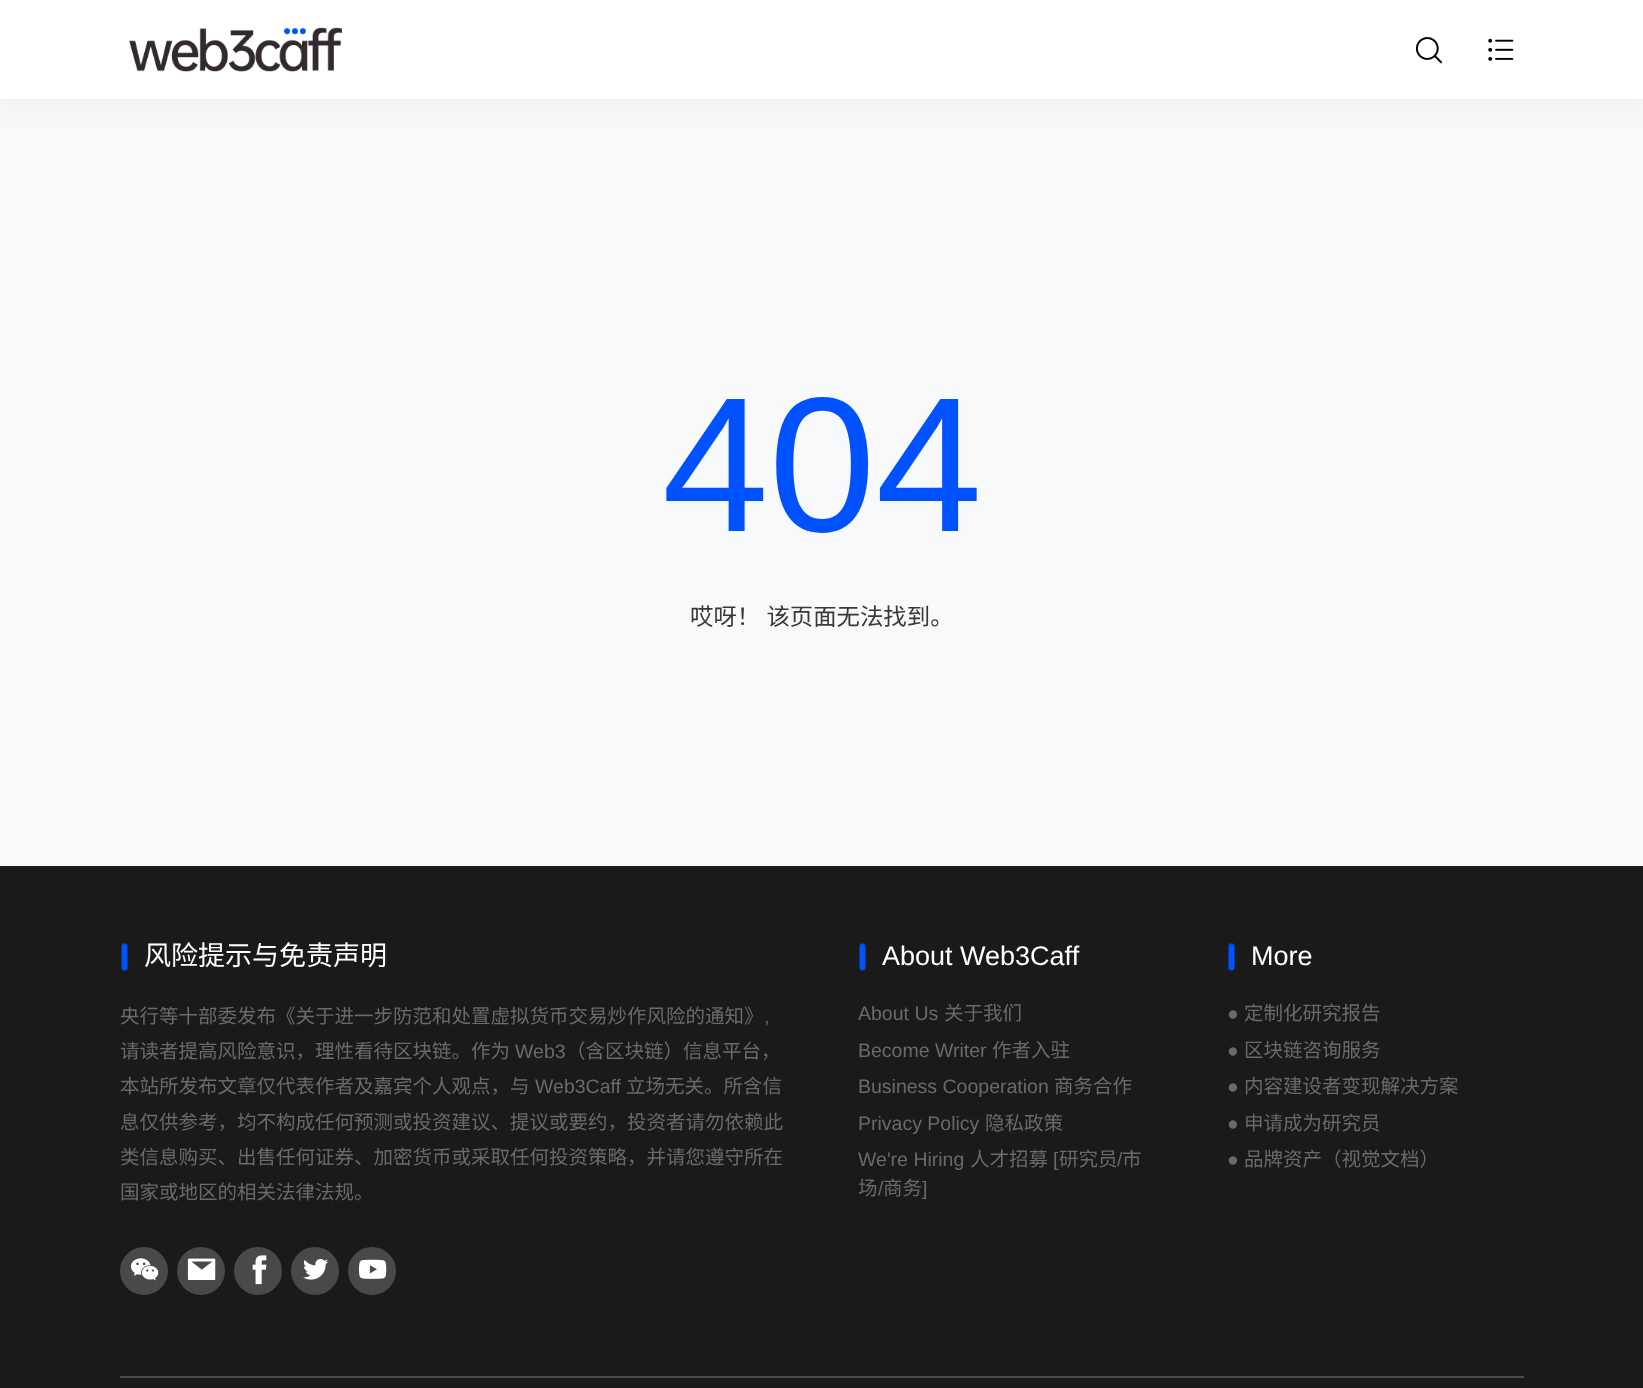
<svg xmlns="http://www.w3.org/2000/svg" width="1643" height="1388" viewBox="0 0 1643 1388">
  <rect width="100%" height="100%" fill="#f8f9fa"/>
  <path d="M0 8h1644v99H0z" fill="#113a5d0d" filter="blur(15px)"/>
  <path d="M0 0h1643v99H0z" fill="#fff"/>
  <image x="129" y="27" width="213" height="45" href="img/1.png"/>
  <image x="1415" y="37" width="27" height="27" href="img/2.png"/>
  <image x="1488" y="38" width="26" height="23" href="img/3.png"/>
  <path d="M0 866h1643v522H0z" fill="#1a1a1a"/>
  <image x="121" y="943" width="7" height="28" href="img/4.png"/>
  <circle cx="144" cy="1271" r="23" fill="#494949" stroke="#494949" stroke-width="2"/>
  <image x="130" y="1258" width="29" height="23" href="img/5.png"/>
  <circle cx="201" cy="1271" r="23" fill="#494949" stroke="#494949" stroke-width="2"/>
  <image x="187" y="1258" width="29" height="22" href="img/6.png"/>
  <circle cx="258" cy="1271" r="23" fill="#494949" stroke="#494949" stroke-width="2"/>
  <image x="252" y="1255" width="15" height="30" href="img/7.png"/>
  <circle cx="315" cy="1271" r="23" fill="#494949" stroke="#494949" stroke-width="2"/>
  <image x="303" y="1259" width="26" height="21" href="img/8.png"/>
  <circle cx="372" cy="1271" r="23" fill="#494949" stroke="#494949" stroke-width="2"/>
  <image x="358" y="1259" width="29" height="20" href="img/9.png"/>
  <image x="859" y="943" width="7" height="28" href="img/4.png"/>
  <image x="1228" y="943" width="7" height="28" href="img/4.png"/>
  <path d="M120 1376h1404v2H120z" fill="#494949"/>
  <text x="662" y="531" font-family="Liberation Sans" font-size="192" fill="#0052ff">404</text>
  <text x="690" y="625" word-spacing="1" font-family="Noto Sans CJK SC" font-size="23.4" fill="#3d3737">哎呀！ 该页面无法找到。</text>
  <text x="144" y="965" font-family="Noto Sans CJK SC" font-size="27" fill="#fff">风险提示与免责声明</text>
  <text x="120" y="1023" font-family="Noto Sans CJK SC" font-size="19.5" fill="#6a6a6a">央行等十部委发布《关于进一步防范和处置虚拟货币交易炒作风险的通知》</text>
  <text x="764" y="1023" font-family="Liberation Sans" font-size="19.5" fill="#6a6a6a">,</text>
  <text x="120" y="1058" font-family="Noto Sans CJK SC" font-size="19.5" fill="#6a6a6a">请读者提高风险意识，理性看待区块链。作为</text>
  <text x="515" y="1058" font-family="Liberation Sans" font-size="19.5" fill="#6a6a6a">Web3</text>
  <g font-family="Noto Sans CJK SC" font-size="19.5" fill="#6a6a6a">
    <text x="566" y="1058">（含区块链）信息平台，</text>
    <text x="120" y="1093">本站所发布文章仅代表作者及嘉宾个人观点，与</text>
  </g>
  <text x="535" y="1093" font-family="Liberation Sans" font-size="19.5" fill="#6a6a6a">Web3Caff</text>
  <g font-family="Noto Sans CJK SC" font-size="19.5" fill="#6a6a6a">
    <text x="626" y="1093">立场无关。所含信</text>
    <text x="120" y="1129">息仅供参考，均不构成任何预测或投资建议、提议或要约，投资者请勿依赖此</text>
    <text x="120" y="1164">类信息购买、出售任何证券、加密货币或采取任何投资策略，并请您遵守所在</text>
    <text x="120" y="1199">国家或地区的相关法律法规。</text>
  </g>
  <text x="882" y="965" font-family="Liberation Sans" font-size="27" fill="#fff">About Web3Caff</text>
  <text x="858" y="1020" font-family="Liberation Sans" font-size="19.5" fill="#6a6a6a">About Us</text>
  <text x="944" y="1020" font-family="Noto Sans CJK SC" font-size="19.5" fill="#6a6a6a">关于我们</text>
  <text x="858" y="1057" font-family="Liberation Sans" font-size="19.5" fill="#6a6a6a">Become Writer</text>
  <text x="992" y="1057" font-family="Noto Sans CJK SC" font-size="19.5" fill="#6a6a6a">作者入驻</text>
  <text x="858" y="1093" font-family="Liberation Sans" font-size="19.5" fill="#6a6a6a">Business Cooperation</text>
  <text x="1054" y="1093" font-family="Noto Sans CJK SC" font-size="19.5" fill="#6a6a6a">商务合作</text>
  <text x="858" y="1130" font-family="Liberation Sans" font-size="19.5" fill="#6a6a6a">Privacy Policy</text>
  <text x="985" y="1130" font-family="Noto Sans CJK SC" font-size="19.5" fill="#6a6a6a">隐私政策</text>
  <text x="858" y="1166" font-family="Liberation Sans" font-size="19.5" fill="#6a6a6a">We're Hiring</text>
  <text x="970" y="1166" font-family="Noto Sans CJK SC" font-size="19.5" fill="#6a6a6a">人才招募</text>
  <text x="1053" y="1166" font-family="Liberation Sans" font-size="19.5" fill="#6a6a6a">[</text>
  <text x="1059" y="1166" font-family="Noto Sans CJK SC" font-size="19.5" fill="#6a6a6a">研究员</text>
  <text x="1117" y="1166" font-family="Liberation Sans" font-size="19.5" fill="#6a6a6a">/</text>
  <g font-family="Noto Sans CJK SC" font-size="19.5" fill="#6a6a6a">
    <text x="1122" y="1166">市</text>
    <text x="858" y="1195">场</text>
  </g>
  <text x="878" y="1195" font-family="Liberation Sans" font-size="19.5" fill="#6a6a6a">/</text>
  <text x="883" y="1195" font-family="Noto Sans CJK SC" font-size="19.5" fill="#6a6a6a">商务</text>
  <text x="922" y="1195" font-family="Liberation Sans" font-size="19.5" fill="#6a6a6a">]</text>
  <text x="1251" y="965" font-family="Liberation Sans" font-size="27" fill="#fff">More</text>
  <text x="1227" y="1020" font-family="Liberation Sans" font-size="19.5" fill="#6a6a6a">●</text>
  <text x="1244" y="1020" font-family="Noto Sans CJK SC" font-size="19.5" fill="#6a6a6a">定制化研究报告</text>
  <text x="1227" y="1057" font-family="Liberation Sans" font-size="19.5" fill="#6a6a6a">●</text>
  <text x="1244" y="1057" font-family="Noto Sans CJK SC" font-size="19.5" fill="#6a6a6a">区块链咨询服务</text>
  <text x="1227" y="1093" font-family="Liberation Sans" font-size="19.5" fill="#6a6a6a">●</text>
  <text x="1244" y="1093" font-family="Noto Sans CJK SC" font-size="19.5" fill="#6a6a6a">内容建设者变现解决方案</text>
  <text x="1227" y="1130" font-family="Liberation Sans" font-size="19.5" fill="#6a6a6a">●</text>
  <text x="1244" y="1130" font-family="Noto Sans CJK SC" font-size="19.5" fill="#6a6a6a">申请成为研究员</text>
  <text x="1227" y="1166" font-family="Liberation Sans" font-size="19.5" fill="#6a6a6a">●</text>
  <text x="1244" y="1166" font-family="Noto Sans CJK SC" font-size="19.5" fill="#6a6a6a">品牌资产（视觉文档）</text>
</svg>
